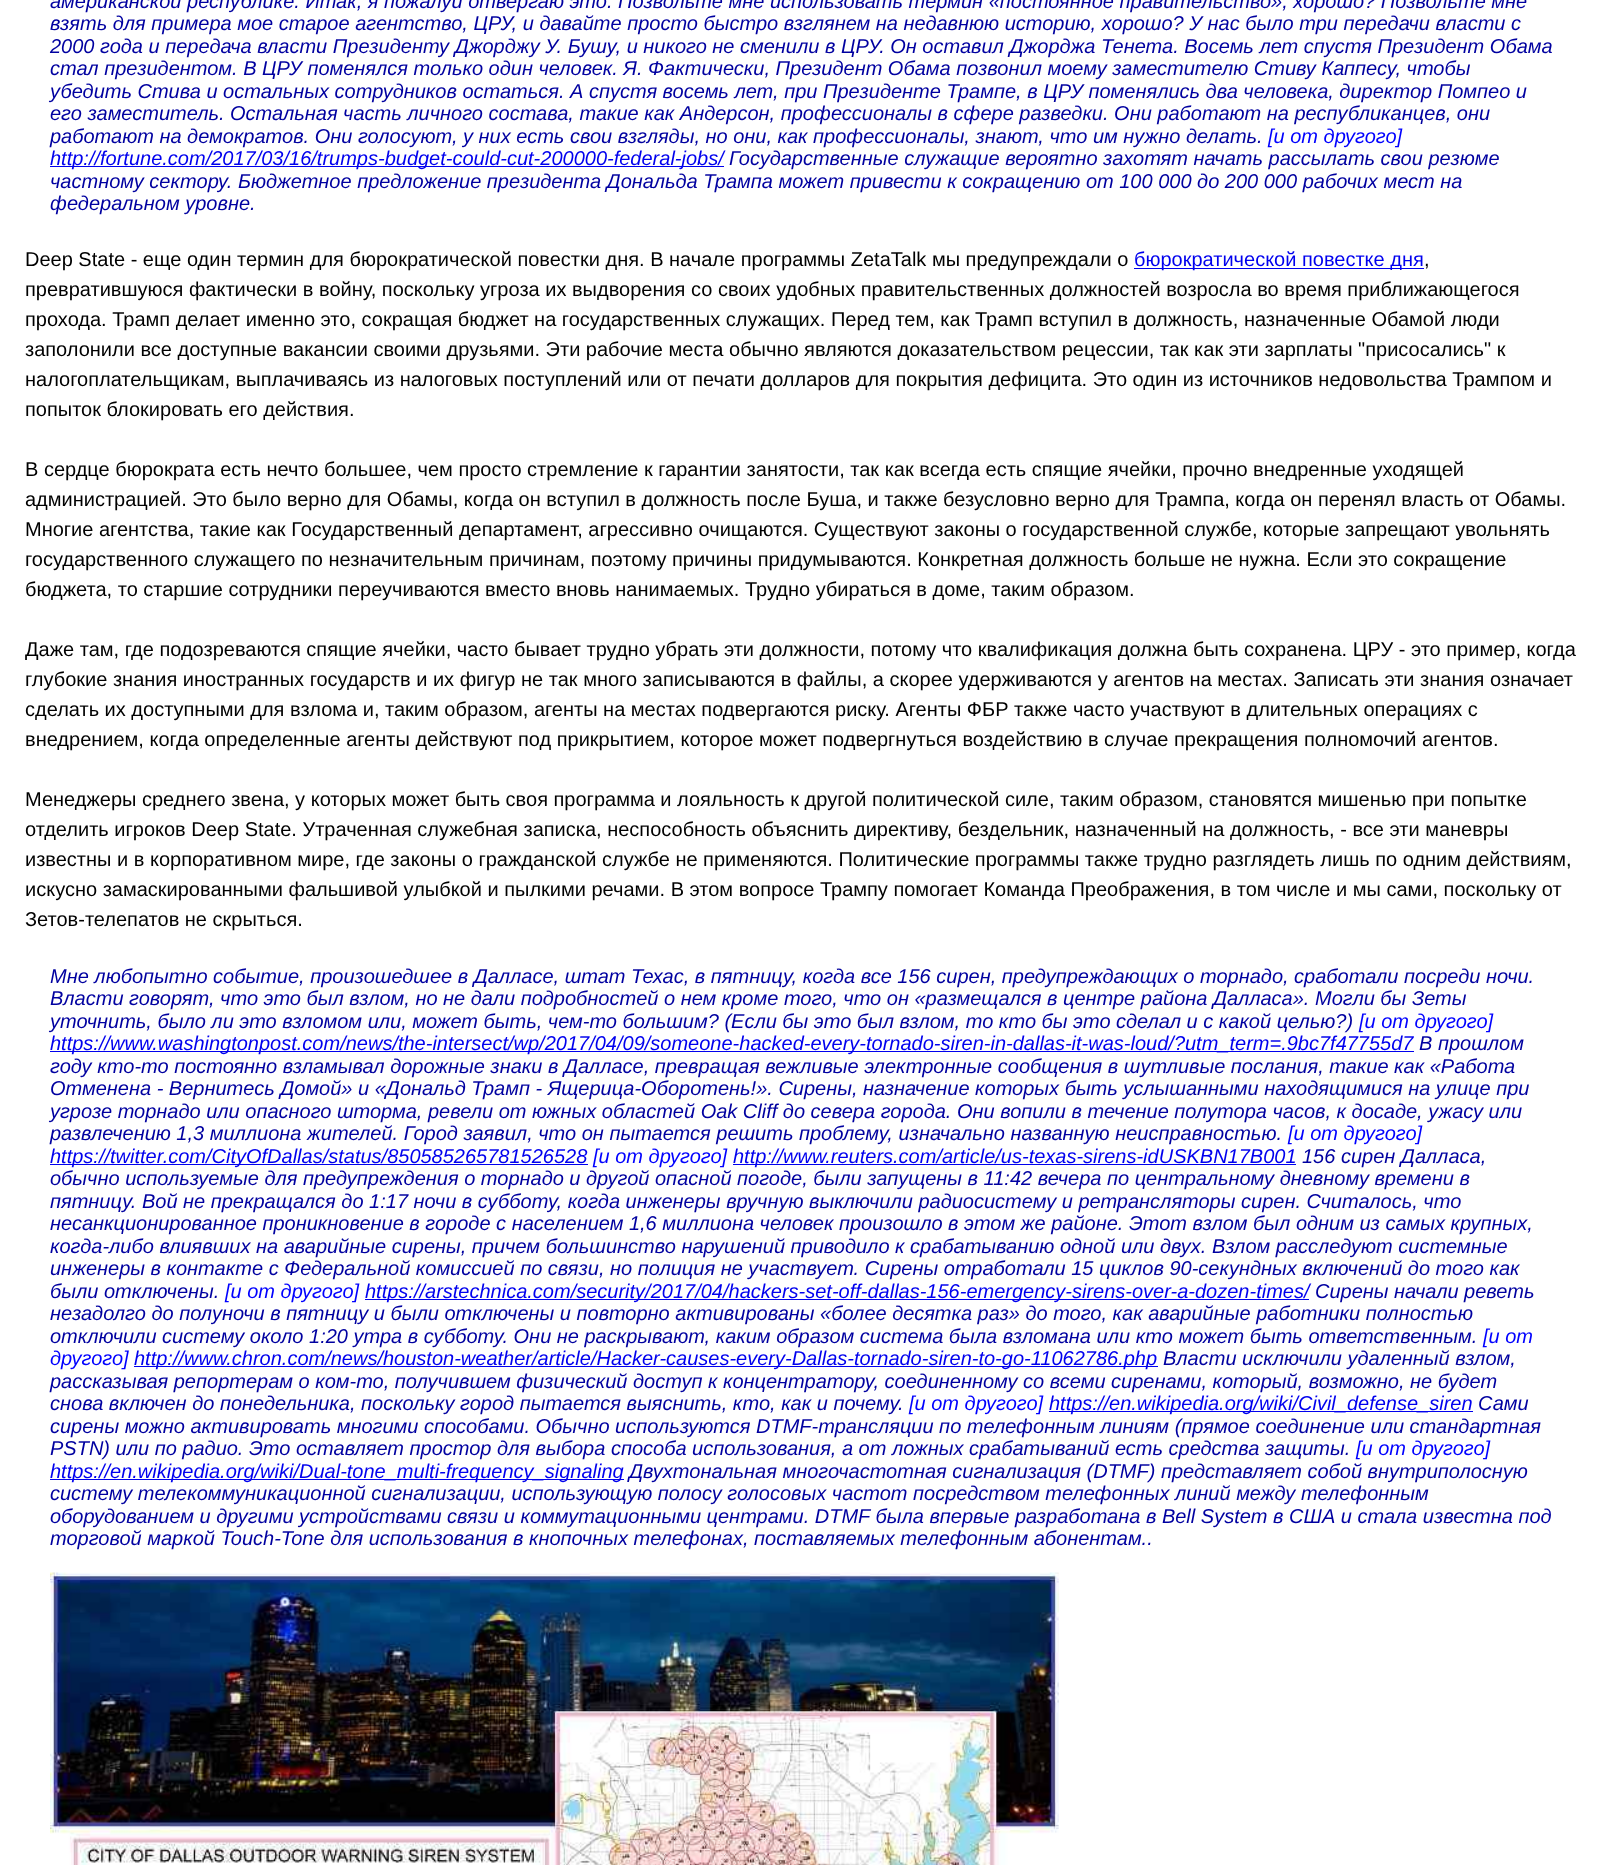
<svg xmlns="http://www.w3.org/2000/svg" width="1605" height="1865" viewBox="0 0 1605 1865">
  <rect width="100%" height="100%" fill="#fff"/>
  <path d="M50 166h674v1H50z" fill="#00e"/>
  <path d="M1134 268h290v1H1134z" fill="#00e"/>
  <path d="M50 1051h1364v1H50z" fill="#00e"/>
  <path d="M50 1164h538v1H50z" fill="#00e"/>
  <path d="M733 1164h563v1H733z" fill="#00e"/>
  <path d="M365 1299h944v1H365z" fill="#00e"/>
  <path d="M134 1366h1024v1H134z" fill="#00e"/>
  <path d="M1049 1411h424v1H1049z" fill="#00e"/>
  <path d="M50 1479h574v1H50z" fill="#00e"/>
  <image x="50" y="1572" width="1009" height="293" href="img/1.png"/>
  <g font-family="Liberation Sans" font-size="20" font-style="italic" fill="#0000a0">
    <text x="50" y="8">американской республике. Итак, я пожалуй отвергаю это. Позвольте мне использовать термин «постоянное правительство», хорошо? Позвольте мне</text>
    <text x="50" y="30">взять для примера мое старое агентство, ЦРУ, и давайте просто быстро взглянем на недавнюю историю, хорошо? У нас было три передачи власти с</text>
    <text x="50" y="53">2000 года и передача власти Президенту Джорджу У. Бушу, и никого не сменили в ЦРУ. Он оставил Джорджа Тенета. Восемь лет спустя Президент Обама</text>
    <text x="50" y="75">стал президентом. В ЦРУ поменялся только один человек. Я. Фактически, Президент Обама позвонил моему заместителю Стиву Каппесу, чтобы</text>
    <text x="50" y="98">убедить Стива и остальных сотрудников остаться. А спустя восемь лет, при Президенте Трампе, в ЦРУ поменялись два человека, директор Помпео и</text>
    <text x="50" y="120">его заместитель. Остальная часть личного состава, такие как Андерсон, профессионалы в сфере разведки. Они работают на республиканцев, они</text>
    <text x="50" y="143">работают на демократов. Они голосуют, у них есть свои взгляды, но они, как профессионалы, знают, что им нужно делать.</text>
  </g>
  <text x="1268" y="143" font-family="Liberation Sans" font-size="20" font-style="italic" fill="#00f">[и от другого]</text>
  <text x="50" y="165" font-family="Liberation Sans" font-size="20" font-style="italic" fill="#00e">http://fortune.com/2017/03/16/trumps-budget-could-cut-200000-federal-jobs/</text>
  <g font-family="Liberation Sans" font-size="20" font-style="italic" fill="#0000a0">
    <text x="729" y="165">Государственные служащие вероятно захотят начать рассылать свои резюме</text>
    <text x="50" y="188">частному сектору. Бюджетное предложение президента Дональда Трампа может привести к сокращению от 100 000 до 200 000 рабочих мест на</text>
    <text x="50" y="210">федеральном уровне.</text>
  </g>
  <text x="25" y="266" font-family="Liberation Sans" font-size="20" fill="#000">Deep State - еще один термин для бюрократической повестки дня. В начале программы ZetaTalk мы предупреждали о</text>
  <text x="1134" y="266" font-family="Liberation Sans" font-size="20" fill="#00e">бюрократической повестке дня</text>
  <g font-family="Liberation Sans" font-size="20" fill="#000">
    <text x="1424" y="266">,</text>
    <text x="25" y="296">превратившуюся фактически в войну, поскольку угроза их выдворения со своих удобных правительственных должностей возросла во время приближающегося</text>
    <text x="25" y="326">прохода. Трамп делает именно это, сокращая бюджет на государственных служащих. Перед тем, как Трамп вступил в должность, назначенные Обамой люди</text>
    <text x="25" y="356">заполонили все доступные вакансии своими друзьями. Эти рабочие места обычно являются доказательством рецессии, так как эти зарплаты "присосались" к</text>
    <text x="25" y="386">налогоплательщикам, выплачиваясь из налоговых поступлений или от печати долларов для покрытия дефицита. Это один из источников недовольства Трампом и</text>
    <text x="25" y="416">попыток блокировать его действия.</text>
    <text x="25" y="476">В сердце бюрократа есть нечто большее, чем просто стремление к гарантии занятости, так как всегда есть спящие ячейки, прочно внедренные уходящей</text>
    <text x="25" y="506">администрацией. Это было верно для Обамы, когда он вступил в должность после Буша, и также безусловно верно для Трампа, когда он перенял власть от Обамы.</text>
    <text x="25" y="536">Многие агентства, такие как Государственный департамент, агрессивно очищаются. Существуют законы о государственной службе, которые запрещают увольнять</text>
    <text x="25" y="566">государственного служащего по незначительным причинам, поэтому причины придумываются. Конкретная должность больше не нужна. Если это сокращение</text>
    <text x="25" y="596">бюджета, то старшие сотрудники переучиваются вместо вновь нанимаемых. Трудно убираться в доме, таким образом.</text>
    <text x="25" y="656">Даже там, где подозреваются спящие ячейки, часто бывает трудно убрать эти должности, потому что квалификация должна быть сохранена. ЦРУ - это пример, когда</text>
    <text x="25" y="686">глубокие знания иностранных государств и их фигур не так много записываются в файлы, а скорее удерживаются у агентов на местах. Записать эти знания означает</text>
    <text x="25" y="716">сделать их доступными для взлома и, таким образом, агенты на местах подвергаются риску. Агенты ФБР также часто участвуют в длительных операциях с</text>
    <text x="25" y="746">внедрением, когда определенные агенты действуют под прикрытием, которое может подвергнуться воздействию в случае прекращения полномочий агентов.</text>
    <text x="25" y="806">Менеджеры среднего звена, у которых может быть своя программа и лояльность к другой политической силе, таким образом, становятся мишенью при попытке</text>
    <text x="25" y="836">отделить игроков Deep State. Утраченная служебная записка, неспособность объяснить директиву, бездельник, назначенный на должность, - все эти маневры</text>
    <text x="25" y="866">известны и в корпоративном мире, где законы о гражданской службе не применяются. Политические программы также трудно разглядеть лишь по одним действиям,</text>
    <text x="25" y="896">искусно замаскированными фальшивой улыбкой и пылкими речами. В этом вопросе Трампу помогает Команда Преображения, в том числе и мы сами, поскольку от</text>
    <text x="25" y="926">Зетов-телепатов не скрыться.</text>
  </g>
  <g font-family="Liberation Sans" font-size="20" font-style="italic" fill="#0000a0">
    <text x="50" y="983">Мне любопытно событие, произошедшее в Далласе, штат Техас, в пятницу, когда все 156 сирен, предупреждающих о торнадо, сработали посреди ночи.</text>
    <text x="50" y="1005">Власти говорят, что это был взлом, но не дали подробностей о нем кроме того, что он «размещался в центре района Далласа». Могли бы Зеты</text>
    <text x="50" y="1028">уточнить, было ли это взломом или, может быть, чем-то большим? (Если бы это был взлом, то кто бы это сделал и с какой целью?)</text>
  </g>
  <text x="1359" y="1028" font-family="Liberation Sans" font-size="20" font-style="italic" fill="#00f">[и от другого]</text>
  <text x="50" y="1050" font-family="Liberation Sans" font-size="20" font-style="italic" fill="#00e">https://www.washingtonpost.com/news/the-intersect/wp/2017/04/09/someone-hacked-every-tornado-siren-in-dallas-it-was-loud/?utm_term=.9bc7f47755d7</text>
  <g font-family="Liberation Sans" font-size="20" font-style="italic" fill="#0000a0">
    <text x="1419" y="1050">В прошлом</text>
    <text x="50" y="1073">году кто-то постоянно взламывал дорожные знаки в Далласе, превращая вежливые электронные сообщения в шутливые послания, такие как «Работа</text>
    <text x="50" y="1095">Отменена - Вернитесь Домой» и «Дональд Трамп - Ящерица-Оборотень!». Сирены, назначение которых быть услышанными находящимися на улице при</text>
    <text x="50" y="1118">угрозе торнадо или опасного шторма, ревели от южных областей Oak Cliff до севера города. Они вопили в течение полутора часов, к досаде, ужасу или</text>
    <text x="50" y="1140">развлечению 1,3 миллиона жителей. Город заявил, что он пытается решить проблему, изначально названную неисправностью.</text>
  </g>
  <text x="1288" y="1140" font-family="Liberation Sans" font-size="20" font-style="italic" fill="#00f">[и от другого]</text>
  <text x="50" y="1163" font-family="Liberation Sans" font-size="20" font-style="italic" fill="#00e">https://twitter.com/CityOfDallas/status/850585265781526528</text>
  <text x="593" y="1163" font-family="Liberation Sans" font-size="20" font-style="italic" fill="#00f">[и от другого]</text>
  <text x="733" y="1163" font-family="Liberation Sans" font-size="20" font-style="italic" fill="#00e">http://www.reuters.com/article/us-texas-sirens-idUSKBN17B001</text>
  <g font-family="Liberation Sans" font-size="20" font-style="italic" fill="#0000a0">
    <text x="1302" y="1163">156 сирен Далласа,</text>
    <text x="50" y="1185">обычно используемые для предупреждения о торнадо и другой опасной погоде, были запущены в 11:42 вечера по центральному дневному времени в</text>
    <text x="50" y="1208">пятницу. Вой не прекращался до 1:17 ночи в субботу, когда инженеры вручную выключили радиосистему и ретрансляторы сирен. Считалось, что</text>
    <text x="50" y="1230">несанкционированное проникновение в городе с населением 1,6 миллиона человек произошло в этом же районе. Этот взлом был одним из самых крупных,</text>
    <text x="50" y="1253">когда-либо влиявших на аварийные сирены, причем большинство нарушений приводило к срабатыванию одной или двух. Взлом расследуют системные</text>
    <text x="50" y="1275">инженеры в контакте с Федеральной комиссией по связи, но полиция не участвует. Сирены отработали 15 циклов 90-секундных включений до того как</text>
    <text x="50" y="1298">были отключены.</text>
  </g>
  <text x="225" y="1298" font-family="Liberation Sans" font-size="20" font-style="italic" fill="#00f">[и от другого]</text>
  <text x="365" y="1298" font-family="Liberation Sans" font-size="20" font-style="italic" fill="#00e">https://arstechnica.com/security/2017/04/hackers-set-off-dallas-156-emergency-sirens-over-a-dozen-times/</text>
  <g font-family="Liberation Sans" font-size="20" font-style="italic" fill="#0000a0">
    <text x="1315" y="1298">Сирены начали реветь</text>
    <text x="50" y="1320">незадолго до полуночи в пятницу и были отключены и повторно активированы «более десятка раз» до того, как аварийные работники полностью</text>
    <text x="50" y="1343">отключили систему около 1:20 утра в субботу. Они не раскрывают, каким образом система была взломана или кто может быть ответственным.</text>
  </g>
  <g font-family="Liberation Sans" font-size="20" font-style="italic" fill="#00f">
    <text x="1483" y="1343">[и от</text>
    <text x="50" y="1365">другого]</text>
  </g>
  <text x="134" y="1365" font-family="Liberation Sans" font-size="20" font-style="italic" fill="#00e">http://www.chron.com/news/houston-weather/article/Hacker-causes-every-Dallas-tornado-siren-to-go-11062786.php</text>
  <g font-family="Liberation Sans" font-size="20" font-style="italic" fill="#0000a0">
    <text x="1163" y="1365">Власти исключили удаленный взлом,</text>
    <text x="50" y="1388">рассказывая репортерам о ком-то, получившем физический доступ к концентратору, соединенному со всеми сиренами, который, возможно, не будет</text>
    <text x="50" y="1410">снова включен до понедельника, поскольку город пытается выяснить, кто, как и почему.</text>
  </g>
  <text x="909" y="1410" font-family="Liberation Sans" font-size="20" font-style="italic" fill="#00f">[и от другого]</text>
  <text x="1049" y="1410" font-family="Liberation Sans" font-size="20" font-style="italic" fill="#00e">https://en.wikipedia.org/wiki/Civil_defense_siren</text>
  <g font-family="Liberation Sans" font-size="20" font-style="italic" fill="#0000a0">
    <text x="1478" y="1410">Сами</text>
    <text x="50" y="1433">сирены можно активировать многими способами. Обычно используются DTMF-трансляции по телефонным линиям (прямое соединение или стандартная</text>
    <text x="50" y="1455">PSTN) или по радио. Это оставляет простор для выбора способа использования, а от ложных срабатываний есть средства защиты.</text>
  </g>
  <text x="1356" y="1455" font-family="Liberation Sans" font-size="20" font-style="italic" fill="#00f">[и от другого]</text>
  <text x="50" y="1478" font-family="Liberation Sans" font-size="20" font-style="italic" fill="#00e">https://en.wikipedia.org/wiki/Dual-tone_multi-frequency_signaling</text>
  <g font-family="Liberation Sans" font-size="20" font-style="italic" fill="#0000a0">
    <text x="629" y="1478">Двухтональная многочастотная сигнализация (DTMF) представляет собой внутриполосную</text>
    <text x="50" y="1500">систему телекоммуникационной сигнализации, использующую полосу голосовых частот посредством телефонных линий между телефонным</text>
    <text x="50" y="1523">оборудованием и другими устройствами связи и коммутационными центрами. DTMF была впервые разработана в Bell System в США и стала известна под</text>
    <text x="50" y="1545">торговой маркой Touch-Tone для использования в кнопочных телефонах, поставляемых телефонным абонентам..</text>
  </g>
</svg>
